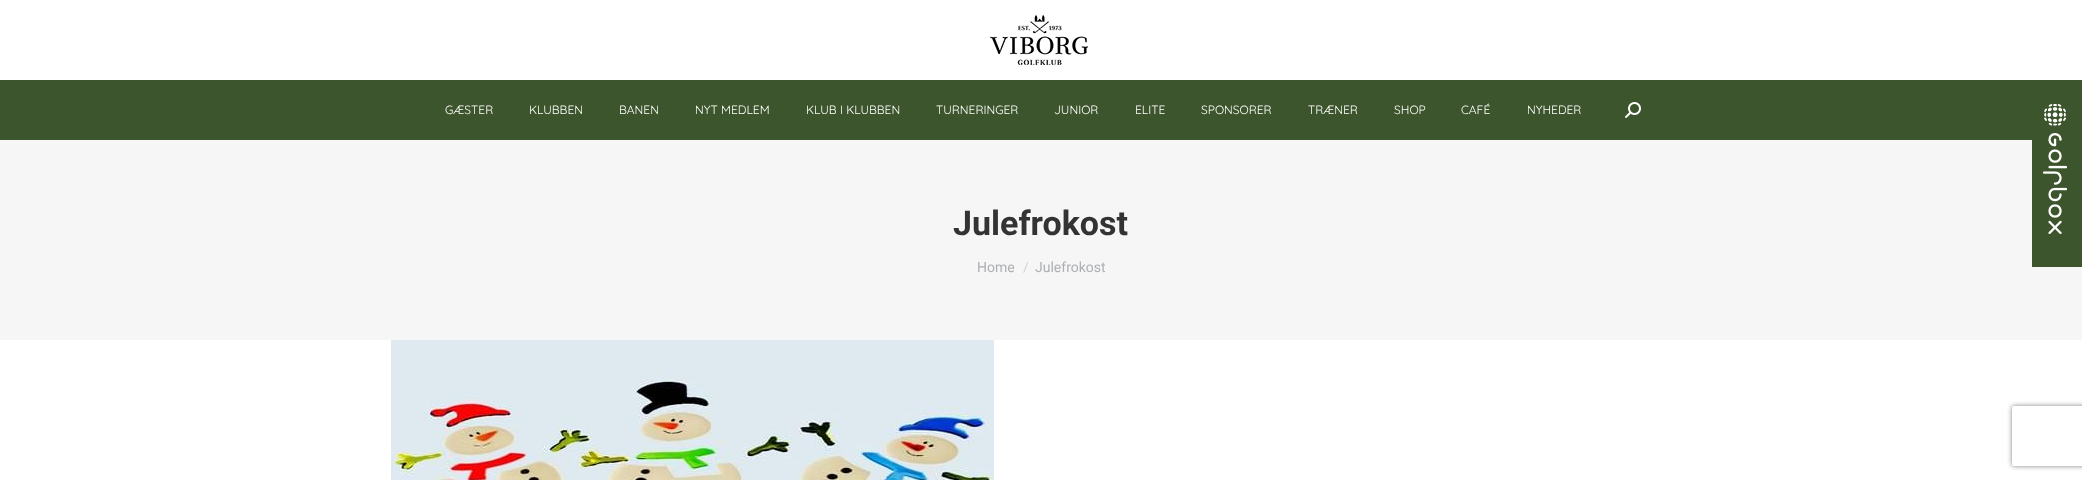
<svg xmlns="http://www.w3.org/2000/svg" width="2082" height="480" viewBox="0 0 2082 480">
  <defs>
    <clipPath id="clip1"><path d="M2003 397H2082V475H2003ZM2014 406H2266C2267 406 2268 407 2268 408V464C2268 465 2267 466 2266 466H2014C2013 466 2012 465 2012 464V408C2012 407 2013 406 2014 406Z" clip-rule="evenodd"/></clipPath>
  </defs>
  <rect width="100%" height="100%" fill="#fff"/>
  <image x="990" y="15" width="98" height="50" href="img/1.png"/>
  <path d="M0 80h2082v60H0z" fill="#3d552c"/>
  <image x="1625" y="102" width="16" height="16" href="img/2.png"/>
  <path d="M0 140h2082v200H0z" fill="#f6f6f6"/>
  <image x="391" y="340" width="603" height="140" href="img/3.png"/>
  <path d="M2032 140h50v127H2032z" fill="#3d552c"/>
  <image x="2043" y="104" width="24" height="130" href="img/4.png"/>
  <g clip-path="url(#clip1)">
    <rect x="2012" y="406" width="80" height="60" rx="2" fill="#808080" filter="blur(2.5px)"/>
  </g>
  <g font-family="Quicksand" font-size="12" fill="#fff">
    <text x="445" y="114">GÆSTER</text>
    <text x="529" y="114">KLUBBEN</text>
    <text x="619" y="114">BANEN</text>
    <text x="695" y="114">NYT MEDLEM</text>
    <text x="806" y="114">KLUB I KLUBBEN</text>
    <text x="936" y="114">TURNERINGER</text>
    <text x="1054" y="114">JUNIOR</text>
    <text x="1135" y="114">ELITE</text>
    <text x="1201" y="114">SPONSORER</text>
    <text x="1308" y="114">TRÆNER</text>
    <text x="1394" y="114">SHOP</text>
    <text x="1461" y="114">CAFÉ</text>
    <text x="1527" y="114">NYHEDER</text>
  </g>
  <text x="953" y="235" font-family="Roboto" font-size="34" font-weight="bold" fill="#333">Julefrokost</text>
  <text x="977" y="272" font-family="Roboto" font-size="14" fill="#adafb3">Home</text>
  <text x="1023" y="272" font-family="Roboto" font-size="14" fill="#d2d3d5">/</text>
  <text x="1035" y="272" font-family="Roboto" font-size="14" fill="#adafb3">Julefrokost</text>
</svg>
